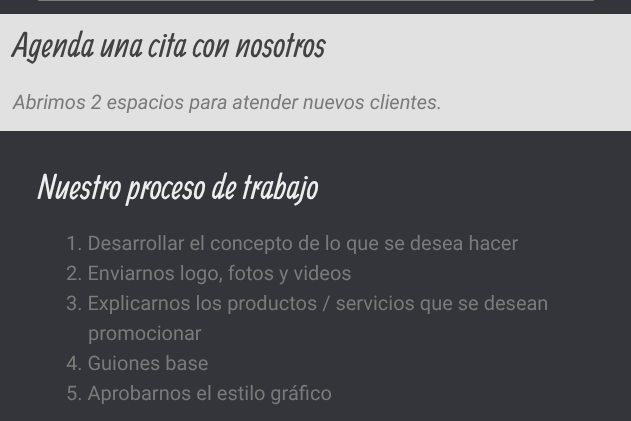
<svg xmlns="http://www.w3.org/2000/svg" width="631" height="421" viewBox="0 0 631 421">
  <rect width="100%" height="100%" fill="#34353a"/>
  <path d="M38.5 -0.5h555v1H38.5z" fill="none" stroke="#7a7a7a"/>
  <path d="M0 14h631v117H0z" fill="#e1e1e1"/>
  <text x="13" y="57" font-family="Allan" font-size="35" fill="#424242">Agenda una cita con nosotros</text>
  <text x="13" y="109" font-family="Roboto" font-size="20" font-style="italic" fill="#7a7a7a">Abrimos 2 espacios para atender nuevos clientes.</text>
  <text x="38" y="199" font-family="Allan" font-size="35" fill="#ededed">Nuestro proceso de trabajo</text>
  <g font-family="Roboto" font-size="20" fill="#7a7a7a">
    <text x="66" y="250">1. Desarrollar el concepto de lo que se desea hacer</text>
    <text x="66" y="280">2. Enviarnos logo, fotos y videos</text>
    <text x="66" y="310">3. Explicarnos los productos / servicios que se desean</text>
    <text x="88" y="340">promocionar</text>
    <text x="66" y="370">4. Guiones base</text>
    <text x="66" y="400">5. Aprobarnos el estilo gráfico</text>
  </g>
</svg>
